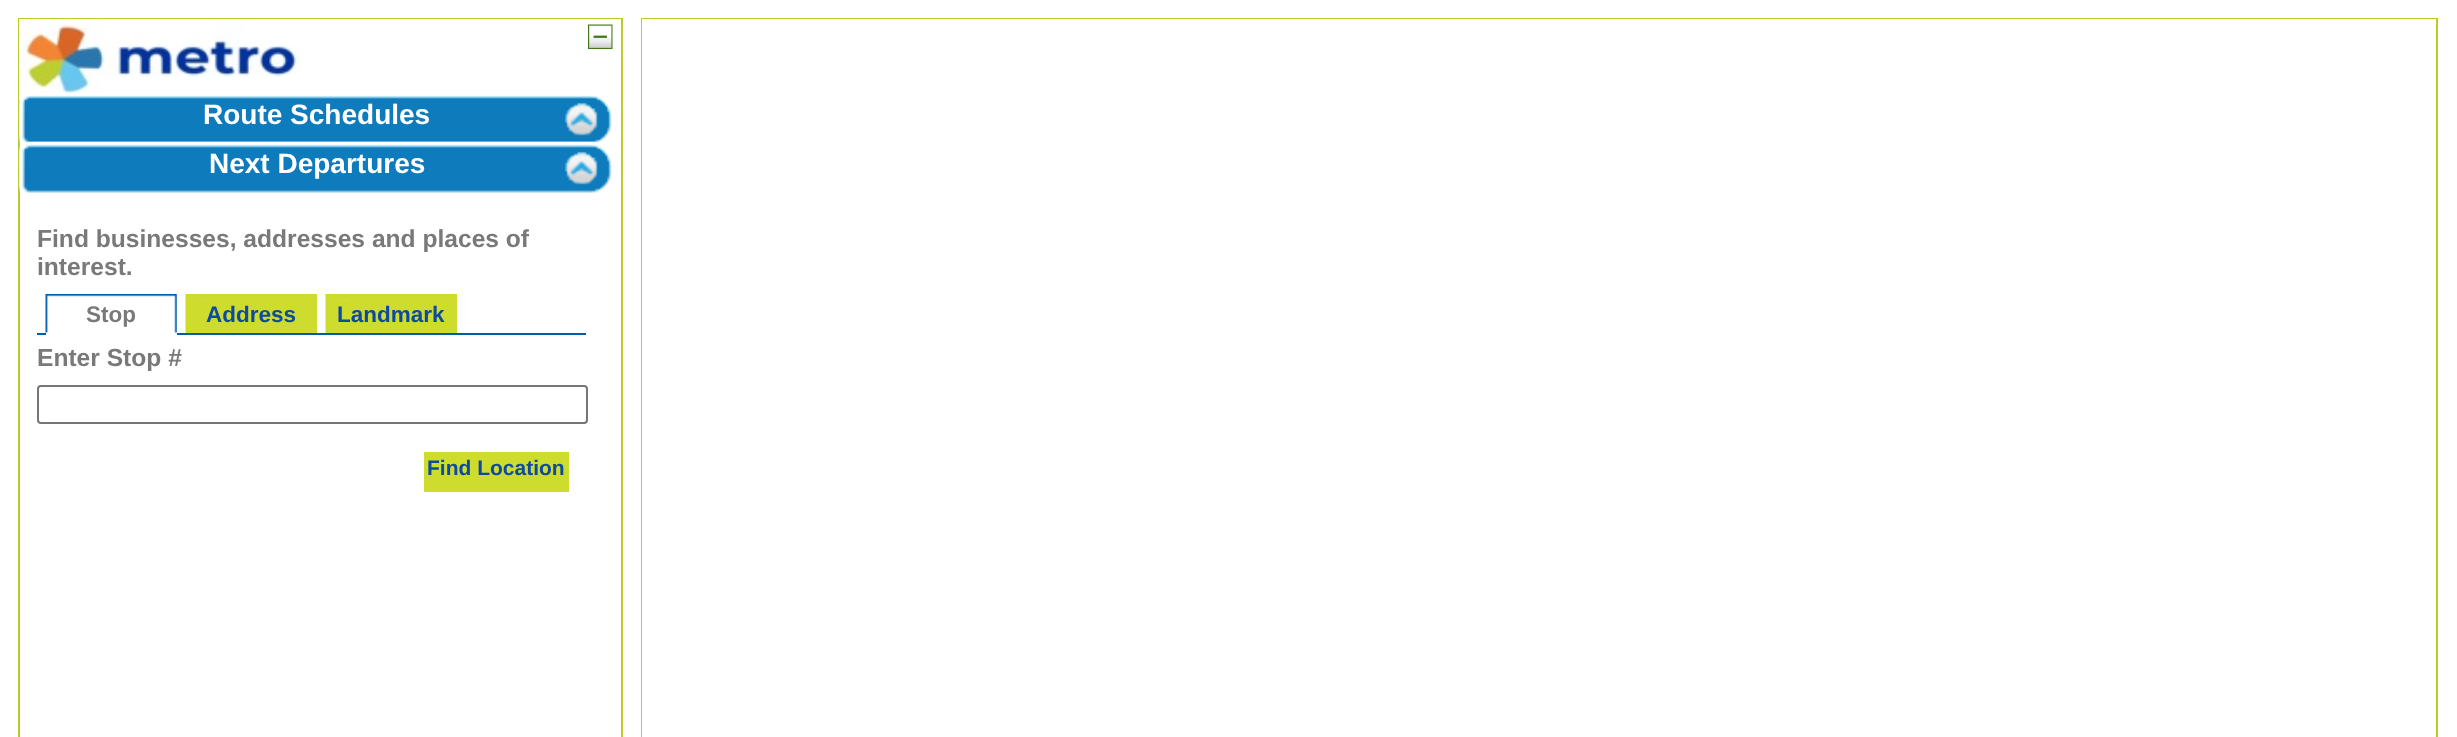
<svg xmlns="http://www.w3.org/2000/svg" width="2457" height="737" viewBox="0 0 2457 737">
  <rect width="100%" height="100%" fill="#fff"/>
  <path d="M19 19h603v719H19z" fill="none" stroke="#bbcb2a" stroke-width="2"/>
  <path d="M19 19h602v81H19z" fill="#fff"/>
  <image x="19" y="19" width="281" height="81" href="img/1.png"/>
  <image x="588" y="24" width="25" height="25" href="img/2.png"/>
  <image x="19" y="92" width="593" height="52" href="img/3.png"/>
  <image x="19" y="141" width="593" height="52" href="img/4.png"/>
  <path d="M37 333h549v2H37z" fill="#005dab"/>
  <image x="45" y="294" width="132" height="39" href="img/5.png"/>
  <path d="M46 333h131v2H46z" fill="#fff"/>
  <path d="M186 294h131v39H186z" fill="#cddc2d"/>
  <image x="185" y="294" width="25" height="39" href="img/6.png"/>
  <path d="M326 294h131v39H326z" fill="#cddc2d"/>
  <image x="325" y="294" width="25" height="39" href="img/7.png"/>
  <rect x="38" y="386" width="549" height="37" rx="3" fill="none" stroke="#767676" stroke-width="2"/>
  <path d="M424 452h145v40H424z" fill="#cddc2d"/>
  <path d="M642 19h1795v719H642z" fill="none" stroke="#bbcb2a" stroke-width="2"/>
  <path d="M642 19h1794v718H642z" fill="#fff"/>
  <g font-family="Liberation Sans" font-size="28" font-weight="bold" fill="#fff">
    <text x="203" y="124">Route Schedules</text>
    <text x="209" y="173">Next Departures</text>
  </g>
  <g font-family="Liberation Sans" font-size="24.6" font-weight="bold" fill="#797979">
    <text x="37" y="247">Find businesses, addresses and places of</text>
    <text x="37" y="275">interest.</text>
  </g>
  <text x="86" y="322" font-family="Liberation Sans" font-size="22.5" font-weight="bold" fill="#797979">Stop</text>
  <g font-family="Liberation Sans" font-size="22.5" font-weight="bold" fill="#0d4aa3">
    <text x="206" y="322">Address</text>
    <text x="337" y="322">Landmark</text>
  </g>
  <text x="37" y="366" font-family="Liberation Sans" font-size="24.6" font-weight="bold" fill="#797979">Enter Stop #</text>
  <text x="427" y="475" font-family="Liberation Sans" font-size="21" font-weight="bold" fill="#0d4aa3">Find Location</text>
</svg>
